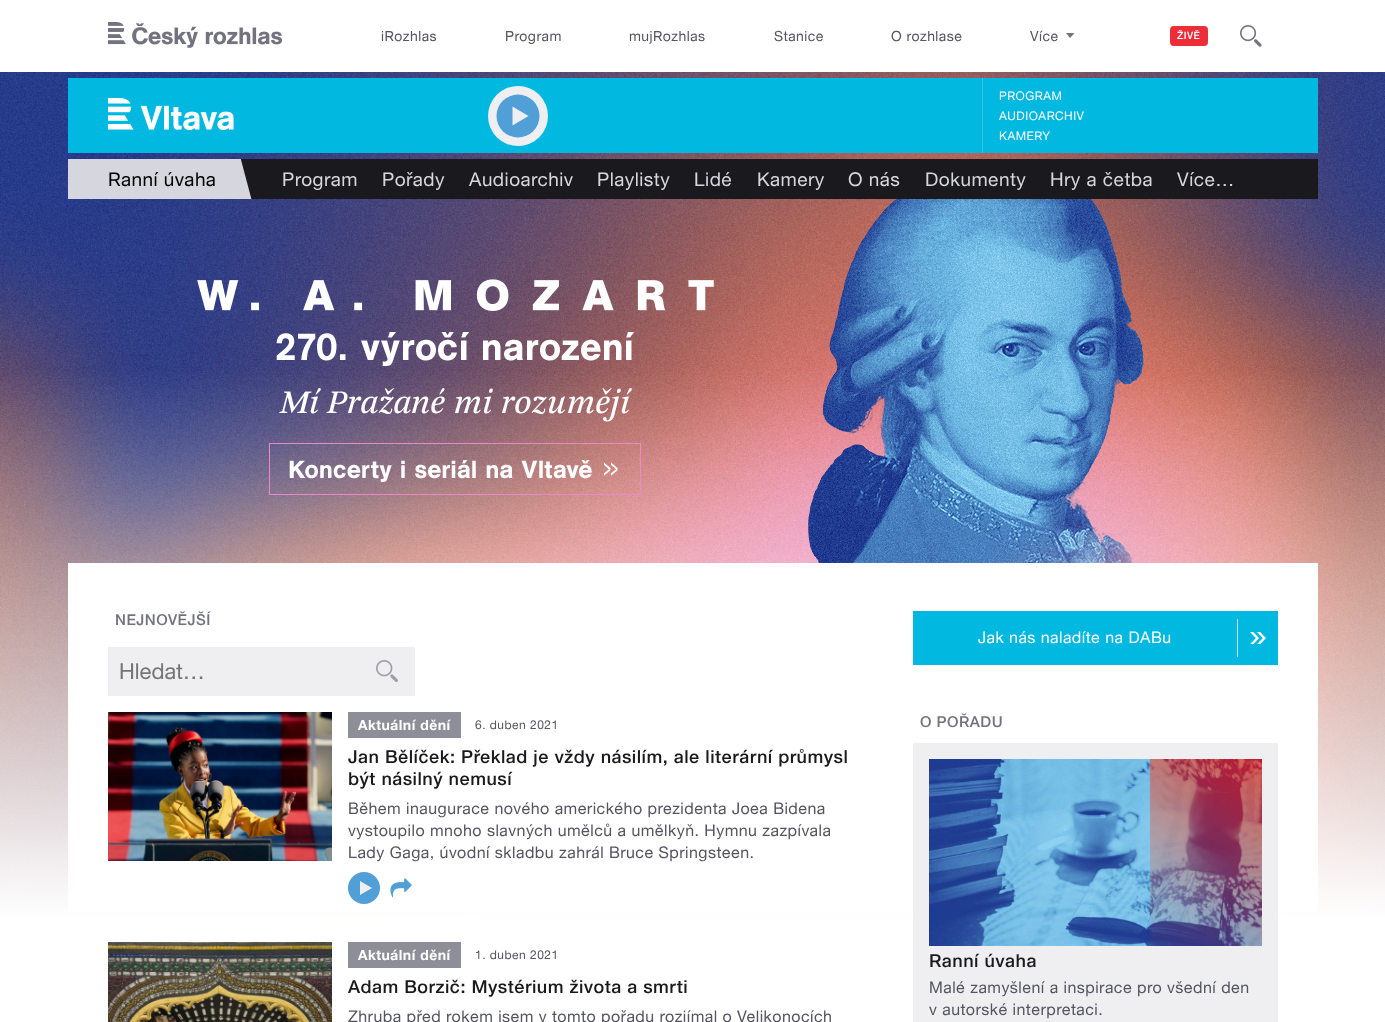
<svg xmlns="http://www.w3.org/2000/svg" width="1385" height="1022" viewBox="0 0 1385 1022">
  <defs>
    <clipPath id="clip1"><path d="M68 159h188v40H68z"/></clipPath>
  </defs>
  <rect width="100%" height="100%" fill="#fff"/>
  <image x="108" y="22" width="175" height="26" href="img/1.png"/>
  <path d="M1066 33H1074.5L1070 38Z" fill="#73737f"/>
  <rect x="1170" y="26" width="38" height="20" rx="4" fill="#ed2e38"/>
  <image x="1240" y="25" width="22" height="22" href="img/2.png"/>
  <image x="0" y="72" width="1385" height="850" href="img/3.png"/>
  <image x="197" y="199" width="947" height="364" href="img/4.png"/>
  <path d="M68 78h1250v75H68z" fill="#00b8e0"/>
  <image x="108" y="98" width="126" height="32" href="img/5.png"/>
  <circle cx="518" cy="116" r="30" fill="#efeff2"/>
  <circle cx="518" cy="116" r="21.5" fill="#519fd7"/>
  <path d="M512.5 106.5L528.5 116L512.5 125.5Z" fill="#efeff2"/>
  <path d="M982 78h1v75H982z" fill="#33c6e6"/>
  <path d="M68 159h184v40H68z" fill="#d6d6de"/>
  <g clip-path="url(#clip1)">
    <path d="M240 156L289 143L301 192L253 205Z" fill="#1a1a1e"/>
  </g>
  <path d="M256 159h1062v40H256z" fill="#1a1a1e"/>
  <path d="M68 563h1250v349H68z" fill="#fff"/>
  <path d="M108 647h307v49H108z" fill="#efeff2"/>
  <image x="376" y="660" width="22" height="22" href="img/6.png"/>
  <image x="108" y="712" width="224" height="149" href="img/7.png"/>
  <path d="M348 712h113v26H348z" fill="#8e8e98"/>
  <circle cx="364" cy="888" r="16" fill="#519fd7"/>
  <path d="M360 881L372 888L360 895Z" fill="#efeff2"/>
  <image x="390" y="878" width="22" height="20" href="img/8.png"/>
  <image x="108" y="942" width="224" height="80" href="img/9.png"/>
  <path d="M348 942h113v26H348z" fill="#8e8e98"/>
  <path d="M913 611h365v54H913z" fill="#00b8e0"/>
  <path d="M1237 619h1v38H1237z" fill="#d6d6de"/>
  <image x="1250" y="632" width="16" height="12" href="img/10.png"/>
  <path d="M913 743h365v279H913z" fill="#efeff2"/>
  <image x="929" y="759" width="333" height="187" href="img/11.png"/>
  <g font-family="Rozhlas" font-size="14" letter-spacing="0.48" fill="#555561">
    <text x="381" y="41">iRozhlas</text>
    <text x="505" y="41">Program</text>
    <text x="629" y="41">mujRozhlas</text>
    <text x="774" y="41">Stanice</text>
    <text x="891" y="41">O rozhlase</text>
    <text x="1030" y="41">Více</text>
  </g>
  <text x="1177" y="39" font-family="Rozhlas" font-size="10" font-weight="500" letter-spacing="0.48" fill="#fff">ŽIVĚ</text>
  <g font-family="Rozhlas" font-size="12" letter-spacing="0.48" fill="#fff">
    <text x="999" y="100">PROGRAM</text>
    <text x="999" y="120">AUDIOARCHIV</text>
    <text x="999" y="140">KAMERY</text>
  </g>
  <text x="108" y="186" font-family="Rozhlas" font-size="19" letter-spacing="0.48" fill="#000">Ranní úvaha</text>
  <g font-family="Rozhlas" font-size="19" letter-spacing="0.48" fill="#d6d6de">
    <text x="282" y="186">Program</text>
    <text x="382" y="186">Pořady</text>
    <text x="469" y="186">Audioarchiv</text>
    <text x="597" y="186">Playlisty</text>
    <text x="694" y="186">Lidé</text>
    <text x="757" y="186">Kamery</text>
    <text x="848" y="186">O nás</text>
    <text x="925" y="186">Dokumenty</text>
    <text x="1050" y="186">Hry a četba</text>
    <text x="1177" y="186">Více…</text>
  </g>
  <text x="115" y="625" font-family="Rozhlas" font-size="15" font-weight="500" letter-spacing="0.48" fill="#73737f">NEJNOVĚJŠÍ</text>
  <text x="119" y="679" font-family="Rozhlas" font-size="22" fill="#757575">Hledat...</text>
  <text x="358" y="730" font-family="Rozhlas" font-size="14" font-weight="bold" letter-spacing="0.48" fill="#fff">Aktuální dění</text>
  <text x="475" y="729" font-family="Rozhlas" font-size="12" letter-spacing="0.48" fill="#555561">6. duben 2021</text>
  <g font-family="Rozhlas" font-size="18" font-weight="500" letter-spacing="0.48" fill="#1a1a1e">
    <text x="348" y="763">Jan Bělíček: Překlad je vždy násilím, ale literární průmysl</text>
    <text x="348" y="785">být násilný nemusí</text>
  </g>
  <g font-family="Rozhlas" font-size="16" letter-spacing="0.48" fill="#555561">
    <text x="348" y="814">Během inaugurace nového amerického prezidenta Joea Bidena</text>
    <text x="348" y="836">vystoupilo mnoho slavných umělců a umělkyň. Hymnu zazpívala</text>
    <text x="348" y="858">Lady Gaga, úvodní skladbu zahrál Bruce Springsteen.</text>
  </g>
  <text x="358" y="960" font-family="Rozhlas" font-size="14" font-weight="bold" letter-spacing="0.48" fill="#fff">Aktuální dění</text>
  <text x="475" y="959" font-family="Rozhlas" font-size="12" letter-spacing="0.48" fill="#555561">1. duben 2021</text>
  <text x="348" y="993" font-family="Rozhlas" font-size="18" font-weight="500" letter-spacing="0.48" fill="#1a1a1e">Adam Borzič: Mystérium života a smrti</text>
  <text x="348" y="1022" font-family="Rozhlas" font-size="16" letter-spacing="0.48" fill="#555561">Zhruba před rokem jsem v tomto pořadu rozjímal o Velikonocích</text>
  <text x="978" y="643" font-family="Rozhlas" font-size="16" letter-spacing="0.48" fill="#fff">Jak nás naladíte na DABu</text>
  <text x="920" y="727" font-family="Rozhlas" font-size="15" font-weight="500" letter-spacing="0.48" fill="#73737f">O POŘADU</text>
  <text x="929" y="967" font-family="Rozhlas" font-size="18" font-weight="500" letter-spacing="0.48" fill="#1a1a1e">Ranní úvaha</text>
  <g font-family="Rozhlas" font-size="16" letter-spacing="0.48" fill="#555561">
    <text x="929" y="993">Malé zamyšlení a inspirace pro všední den</text>
    <text x="929" y="1015">v autorské interpretaci.</text>
  </g>
</svg>
